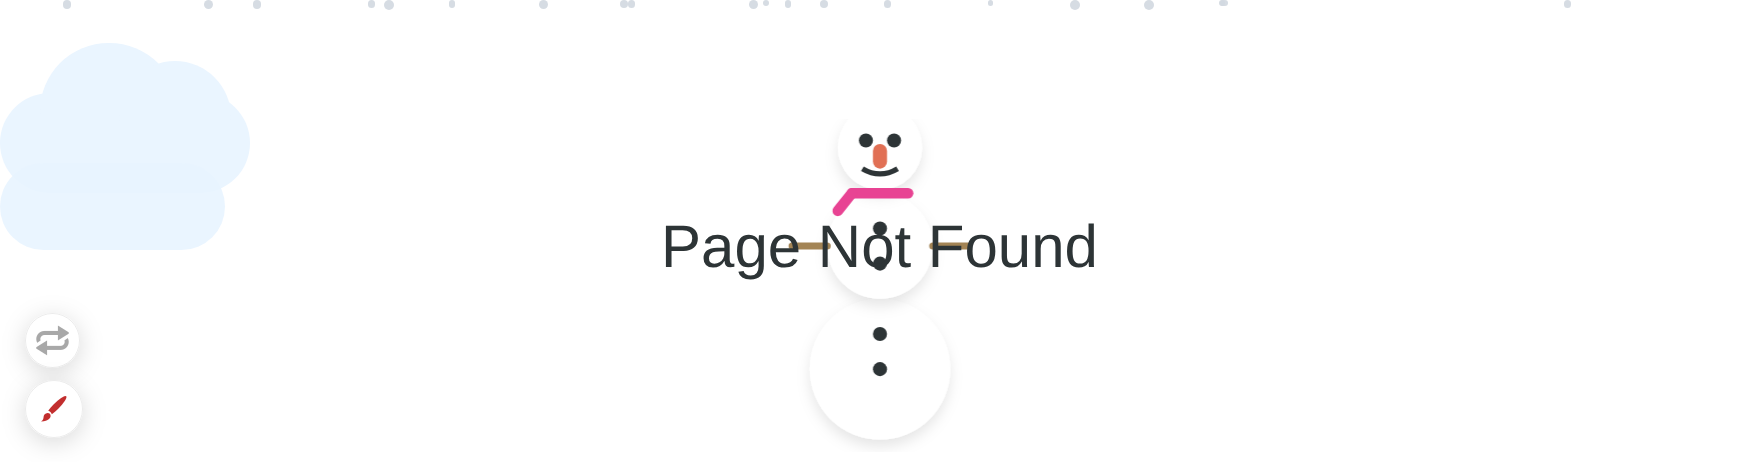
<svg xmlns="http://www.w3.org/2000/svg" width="1758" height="462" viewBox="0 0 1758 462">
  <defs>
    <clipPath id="clip1"><path d="M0 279H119V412H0ZM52.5 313C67.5 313 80 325.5 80 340.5C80 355.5 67.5 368 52.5 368C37.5 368 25 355.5 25 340.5C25 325.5 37.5 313 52.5 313Z" clip-rule="evenodd"/></clipPath>
    <clipPath id="clip2"><path d="M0 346H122V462H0ZM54 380C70 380 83 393 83 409C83 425 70 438 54 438C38 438 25 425 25 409C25 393 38 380 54 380Z" clip-rule="evenodd"/></clipPath>
  </defs>
  <rect width="100%" height="100%" fill="#fff"/>
  <rect x="63" width="8" height="9" rx="4" fill="#d6dce3"/>
  <circle cx="208.5" cy="4.5" r="4.5" fill="#d6dce3"/>
  <rect x="253" width="8" height="9" rx="4" fill="#d6dce3"/>
  <rect x="368" width="7" height="8" rx="3.5" fill="#d6dce3"/>
  <circle cx="389" cy="5" r="5" fill="#d6dce3"/>
  <rect x="449" width="6" height="8" rx="3" fill="#d6dce3"/>
  <circle cx="543.5" cy="4.5" r="4.5" fill="#d6dce3"/>
  <circle cx="624" cy="4" r="4" fill="#d6dce3"/>
  <rect x="628" width="7" height="8" rx="3.5" fill="#d6dce3"/>
  <circle cx="753.5" cy="4.5" r="4.5" fill="#d6dce3"/>
  <circle cx="766" cy="3" r="3" fill="#d6dce3"/>
  <rect x="785" width="6" height="8" rx="3" fill="#d6dce3"/>
  <circle cx="824" cy="4" r="4" fill="#d6dce3"/>
  <rect x="884" width="7" height="8" rx="3.5" fill="#d6dce3"/>
  <rect x="988" width="5" height="6" rx="2.5" fill="#d6dce3"/>
  <circle cx="1075" cy="5" r="5" fill="#d6dce3"/>
  <circle cx="1149" cy="5" r="5" fill="#d6dce3"/>
  <circle cx="1222" cy="3" r="3" fill="#d6dce3"/>
  <rect x="1220" width="8" height="6" rx="3" fill="#d1d8e0e6"/>
  <rect x="1564" width="7" height="8" rx="3.5" fill="#d6dce3"/>
  <rect y="93" width="250" height="100" rx="50" fill="#eaf5ff"/>
  <rect x="40" y="43" width="138" height="137" rx="68.5" fill="#eaf5ff"/>
  <rect x="119" y="61" width="112" height="113" rx="56" fill="#eaf5ff"/>
  <image x="787" y="119" width="185" height="333" href="img/1.png"/>
  <rect y="163" width="225" height="87" rx="43.5" fill="#e8f4ffe6"/>
  <g clip-path="url(#clip1)">
    <rect x="25" y="318" width="55" height="55" rx="27.5" fill="#00000026" filter="blur(12.5px)"/>
  </g>
  <circle cx="52.5" cy="340.5" r="27.5" fill="#fffffff2"/>
  <circle cx="52.5" cy="340.5" r="27" fill="none" stroke="#00000014"/>
  <image x="36" y="325" width="33" height="31" href="img/2.png"/>
  <g clip-path="url(#clip2)">
    <rect x="25" y="385" width="58" height="58" rx="29" fill="#00000026" filter="blur(12.5px)"/>
  </g>
  <circle cx="54" cy="409" r="29" fill="#fffffff2"/>
  <circle cx="54" cy="409" r="28.5" fill="none" stroke="#00000014"/>
  <image x="41" y="396" width="26" height="26" href="img/3.png"/>
  <text x="661" y="267" font-family="Liberation Sans" font-size="60" fill="#2d3436">Page Not Found</text>
</svg>
